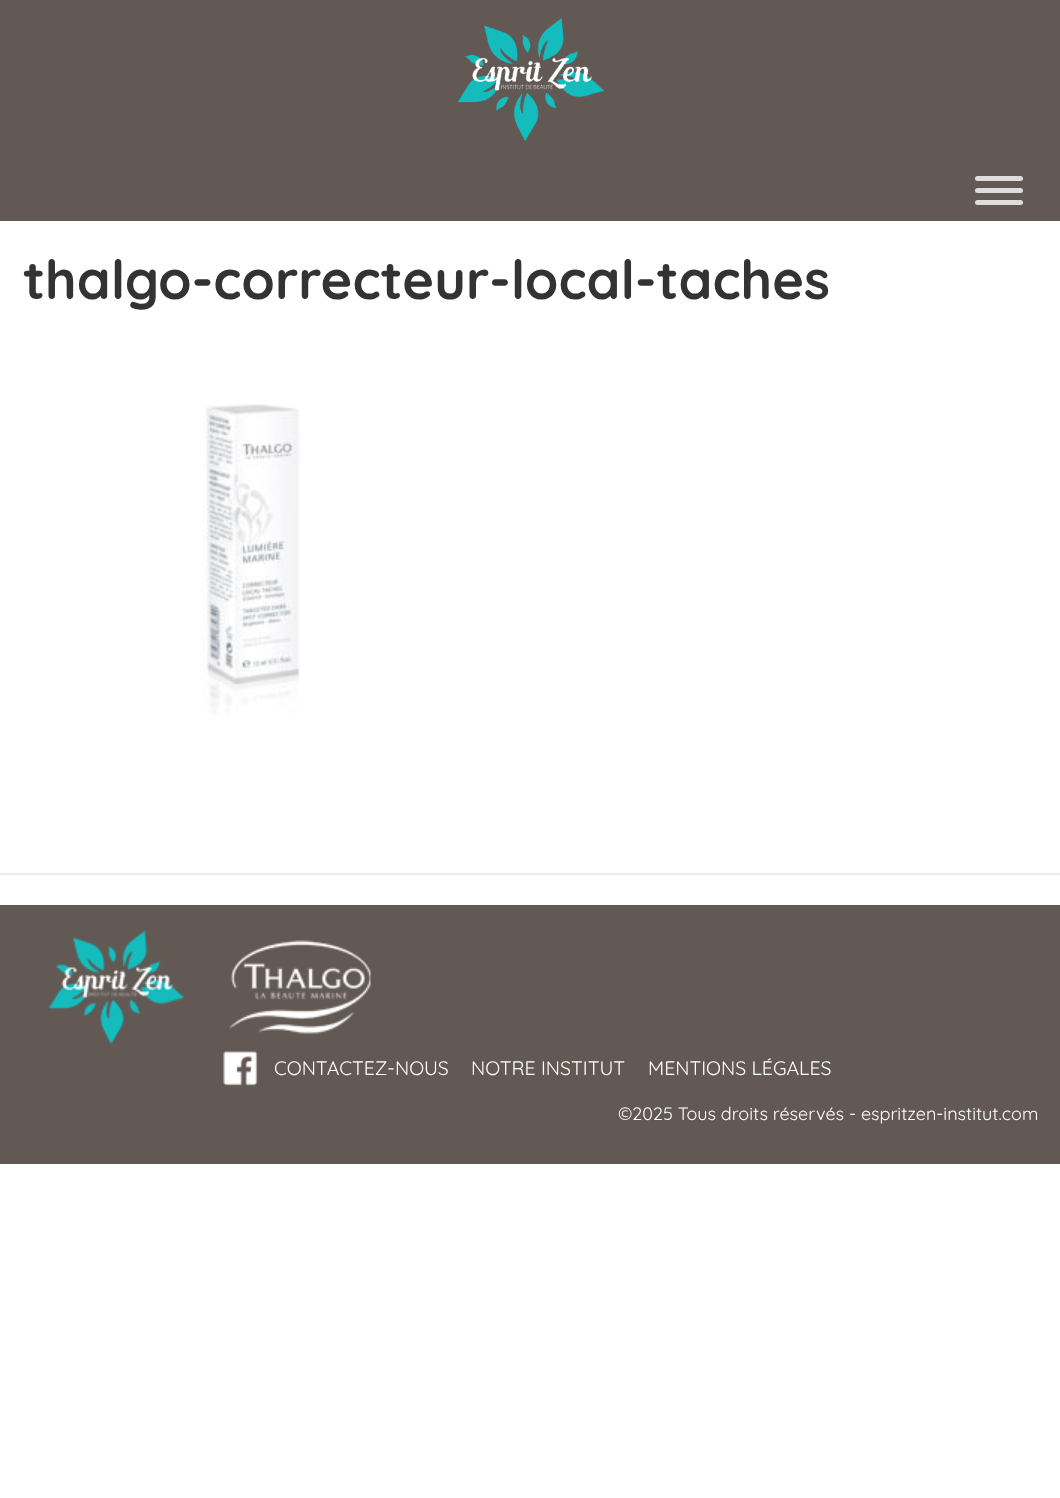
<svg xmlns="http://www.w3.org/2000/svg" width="1060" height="1498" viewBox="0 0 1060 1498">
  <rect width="100%" height="100%" fill="#fff"/>
  <path d="M0 0h1060v221H0z" fill="#635954"/>
  <image x="457" y="18" width="147" height="123" href="img/1.png"/>
  <rect x="975" y="176" width="48" height="5" rx="2.5" fill="#ddd"/>
  <rect x="975" y="188" width="48" height="5" rx="2.5" fill="#ddd"/>
  <rect x="975" y="200" width="48" height="5" rx="2.5" fill="#ddd"/>
  <image x="202" y="404" width="98" height="311" href="img/2.png"/>
  <path d="M0 873h1060v2H0z" fill="#eee"/>
  <path d="M0 905h1060v259H0z" fill="#635954"/>
  <image x="48" y="930" width="137" height="115" href="img/3.png"/>
  <image x="229" y="940" width="142" height="94" href="img/4.png"/>
  <image x="223" y="1051" width="35" height="35" href="img/5.png"/>
  <text x="23" y="299" font-family="Quicksand" font-size="54" font-weight="bold" fill="#333">thalgo-correcteur-local-taches</text>
  <g font-family="Quicksand" font-size="19.5" fill="#fff">
    <text x="274" y="1075">CONTACTEZ-NOUS</text>
    <text x="471" y="1075">NOTRE INSTITUT</text>
    <text x="648" y="1075">MENTIONS LÉGALES</text>
  </g>
  <text x="618" y="1120" font-family="Quicksand" font-size="18" fill="#fff">©2025 Tous droits réservés - espritzen-institut.com</text>
</svg>
